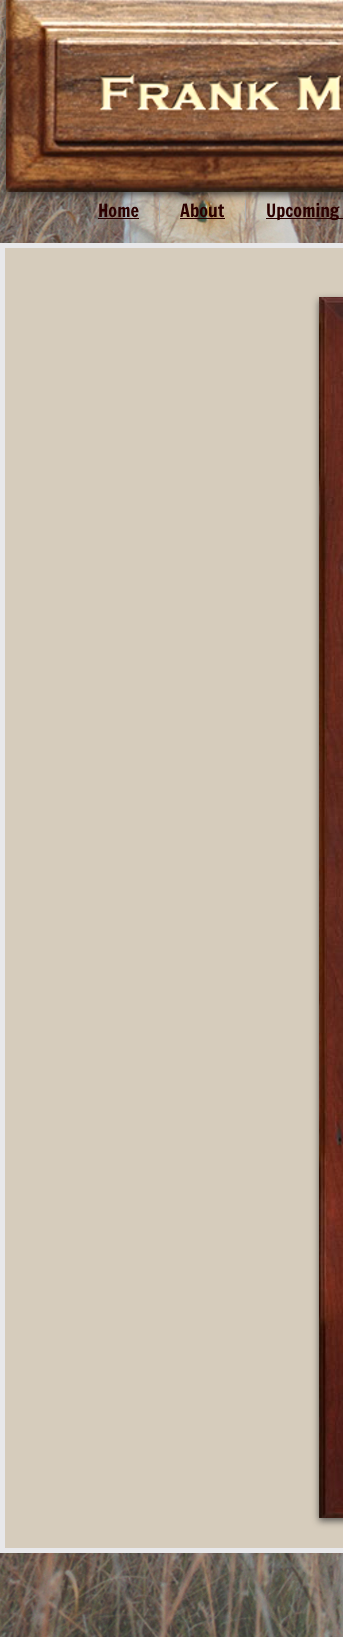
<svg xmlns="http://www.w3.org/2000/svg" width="343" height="1637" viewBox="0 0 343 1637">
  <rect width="100%" height="100%" fill="#fff"/>
  <image x="0" y="0" width="343" height="1637" href="img/1.png"/>
  <path d="M2.5 245.5h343v1305H2.5z" fill="#d6ccbc" stroke="#e8e8ea" stroke-width="5"/>
  <path d="M6 -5h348v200H6z" fill="#323232bf" filter="blur(3.5px)"/>
  <image x="6" y="0" width="337" height="192" href="img/2.png"/>
  <path d="M159 200h1v22H159z" fill="#aeaeae"/>
  <path d="M98 218h41v1H98z" fill="#2b0000"/>
  <path d="M245 200h1v22H245z" fill="#aeaeae"/>
  <path d="M180 218h45v1H180z" fill="#2b0000"/>
  <path d="M266 218h77v1H266z" fill="#2b0000"/>
  <path d="M319 300h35v1221H319z" fill="#323232bf" filter="blur(3.5px)"/>
  <image x="319" y="297" width="24" height="1221" href="img/3.png"/>
  <g font-family="Francois One" font-size="18" fill="#2b0000">
    <text x="98" y="217">Home</text>
    <text x="180" y="217">About</text>
    <text x="266" y="217">Upcoming</text>
  </g>
</svg>
